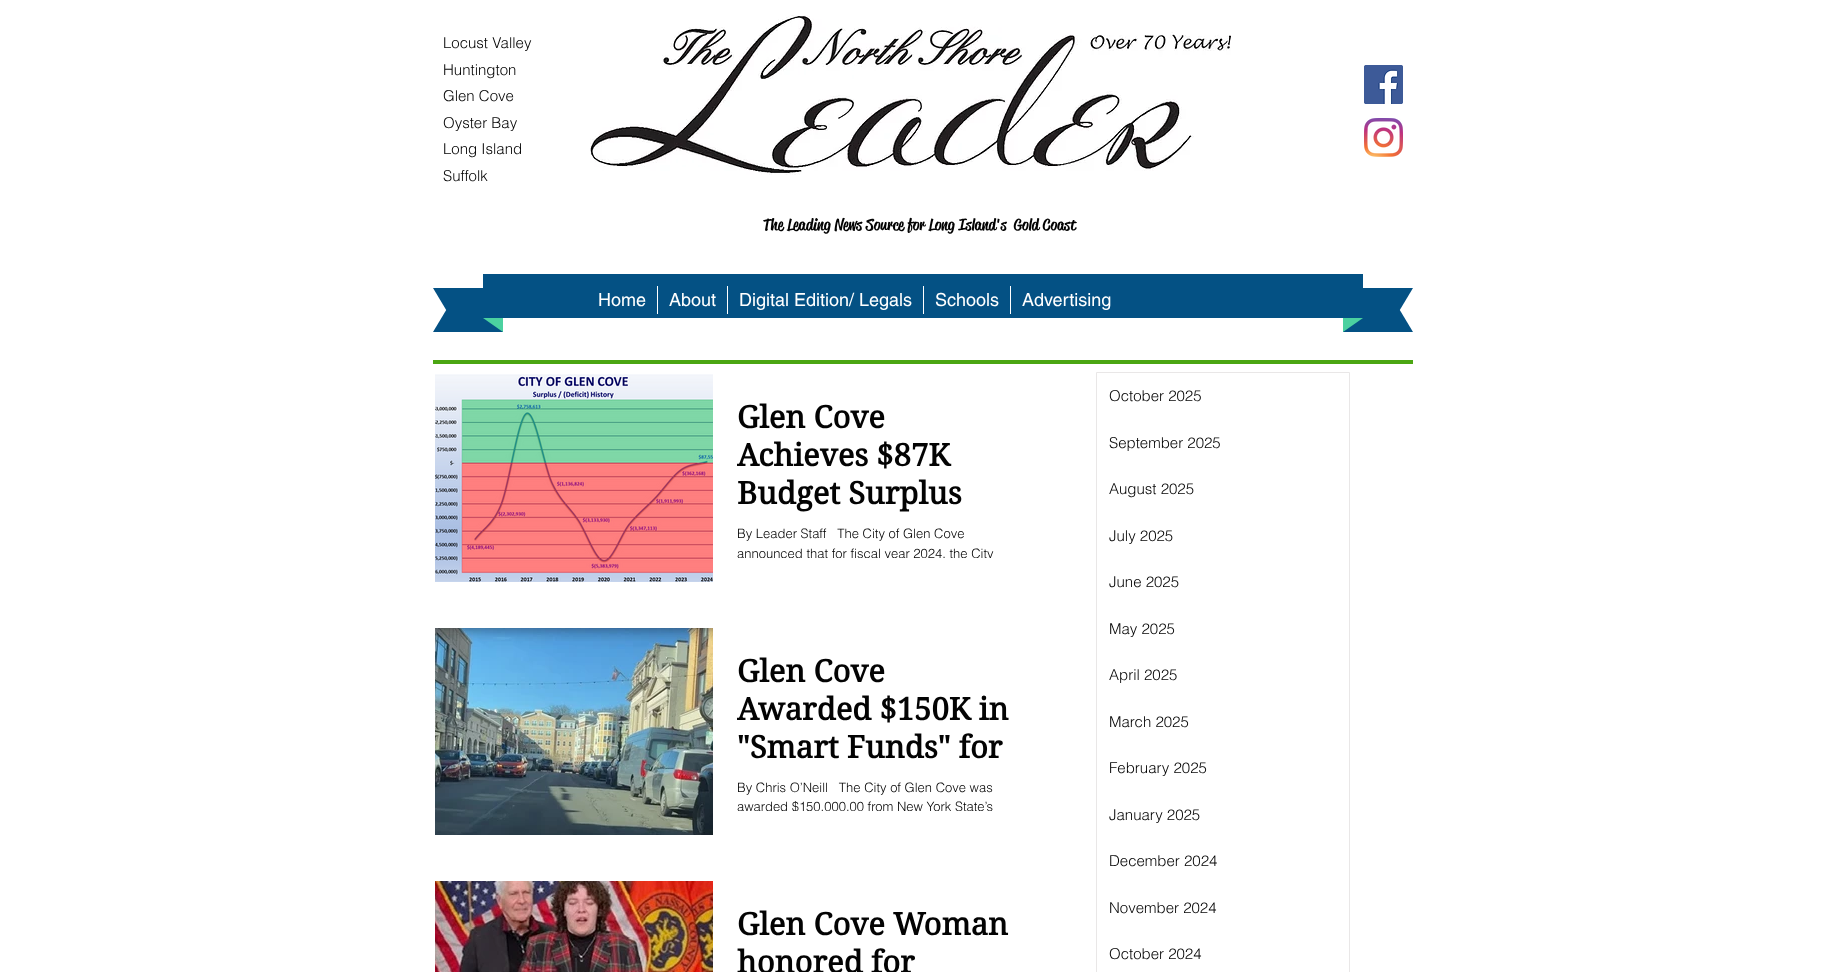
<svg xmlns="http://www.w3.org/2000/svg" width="1845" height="972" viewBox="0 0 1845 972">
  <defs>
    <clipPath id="clip1"><path d="M433 288h980v22H433z"/></clipPath>
    <clipPath id="clip2"><path d="M433 310h980v22H433z"/></clipPath>
    <clipPath id="clip3"><path d="M737 524h276v34H737z"/></clipPath>
    <clipPath id="clip4"><path d="M737 778h276v33H737z"/></clipPath>
  </defs>
  <rect width="100%" height="100%" fill="#fff"/>
  <image x="590" y="15" width="641" height="160" href="img/1.png"/>
  <image x="1364" y="65" width="39" height="39" href="img/2.png"/>
  <image x="1364" y="118" width="39" height="39" href="img/3.png"/>
  <g clip-path="url(#clip1)">
    <path d="M433 288H503V388H493Z" fill="#045184"/>
    <path d="M1343 288H1413L1353 388H1343Z" fill="#045184"/>
  </g>
  <g clip-path="url(#clip2)">
    <path d="M503 332H433L493 232H503Z" fill="#045184"/>
    <path d="M1413 332H1343V232H1353Z" fill="#045184"/>
  </g>
  <path d="M483 274h880v44H483z" fill="#045184"/>
  <path d="M657 286h1v28H657z" fill="#fff"/>
  <path d="M727 286h1v28H727z" fill="#fff"/>
  <path d="M923 286h1v28H923z" fill="#fff"/>
  <path d="M1010 286h1v28H1010z" fill="#fff"/>
  <path d="M503 318V332L483 318Z" fill="#4bd1a0"/>
  <path d="M1343 332V318H1363Z" fill="#4bd1a0"/>
  <path d="M433 360h980v4H433z" fill="#4ba612"/>
  <image x="435" y="374" width="278" height="208" href="img/4.png"/>
  <image x="435" y="628" width="278" height="207" href="img/5.png"/>
  <image x="435" y="881" width="278" height="91" href="img/6.png"/>
  <path d="M1096.5 372.5h253v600H1096.5z" fill="none" stroke="#e9e7e7"/>
  <g font-family="helvetica" font-size="15" font-weight="300" fill="#030303">
    <text x="443" y="48">Locust Valley</text>
    <text x="443" y="75">Huntington</text>
    <text x="443" y="101">Glen Cove</text>
    <text x="443" y="128">Oyster Bay</text>
    <text x="443" y="154">Long Island</text>
    <text x="443" y="181">Suffolk</text>
  </g>
  <text x="763" y="230" font-family="'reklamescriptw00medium'" font-size="16" font-weight="500" fill="#030303" xml:space="preserve">The Leading News Source for Long Island's  Gold Coast</text>
  <g font-family="helvetica" font-size="18" fill="#fff">
    <text x="598" y="306">Home</text>
    <text x="669" y="306">About</text>
    <text x="739" y="306">Digital Edition/ Legals</text>
    <text x="935" y="306">Schools</text>
    <text x="1022" y="306">Advertising</text>
  </g>
  <g font-family="'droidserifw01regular'" font-size="31" font-weight="bold" fill="#030303">
    <text x="737" y="428">Glen Cove</text>
    <text x="737" y="466">Achieves $87K</text>
    <text x="737" y="504">Budget Surplus</text>
  </g>
  <text x="737" y="538" font-family="helvetica" font-size="13" font-weight="300" fill="#030303" xml:space="preserve">By Leader Staff   The City of Glen Cove</text>
  <g clip-path="url(#clip3)">
    <text x="737" y="558" font-family="helvetica" font-size="13" font-weight="300" fill="#030303">announced that for fiscal year 2024, the City</text>
  </g>
  <g font-family="'droidserifw01regular'" font-size="31" font-weight="bold" fill="#030303">
    <text x="737" y="682">Glen Cove</text>
    <text x="737" y="720">Awarded $150K in</text>
    <text x="737" y="758">"Smart Funds" for</text>
  </g>
  <text x="737" y="792" font-family="helvetica" font-size="13" font-weight="300" fill="#030303" xml:space="preserve">By Chris O’Neill   The City of Glen Cove was</text>
  <g clip-path="url(#clip4)">
    <text x="737" y="811" font-family="helvetica" font-size="13" font-weight="300" fill="#030303">awarded $150,000.00 from New York State’s</text>
  </g>
  <g font-family="'droidserifw01regular'" font-size="31" font-weight="bold" fill="#030303">
    <text x="737" y="935">Glen Cove Woman</text>
    <text x="737" y="973">honored for</text>
  </g>
  <g font-family="helvetica" font-size="15" font-weight="300" fill="#030303">
    <text x="1109" y="401">October 2025</text>
    <text x="1109" y="448">September 2025</text>
    <text x="1109" y="494">August 2025</text>
    <text x="1109" y="541">July 2025</text>
    <text x="1109" y="587">June 2025</text>
    <text x="1109" y="634">May 2025</text>
    <text x="1109" y="680">April 2025</text>
    <text x="1109" y="727">March 2025</text>
    <text x="1109" y="773">February 2025</text>
    <text x="1109" y="820">January 2025</text>
    <text x="1109" y="866">December 2024</text>
    <text x="1109" y="913">November 2024</text>
    <text x="1109" y="959">October 2024</text>
  </g>
</svg>
